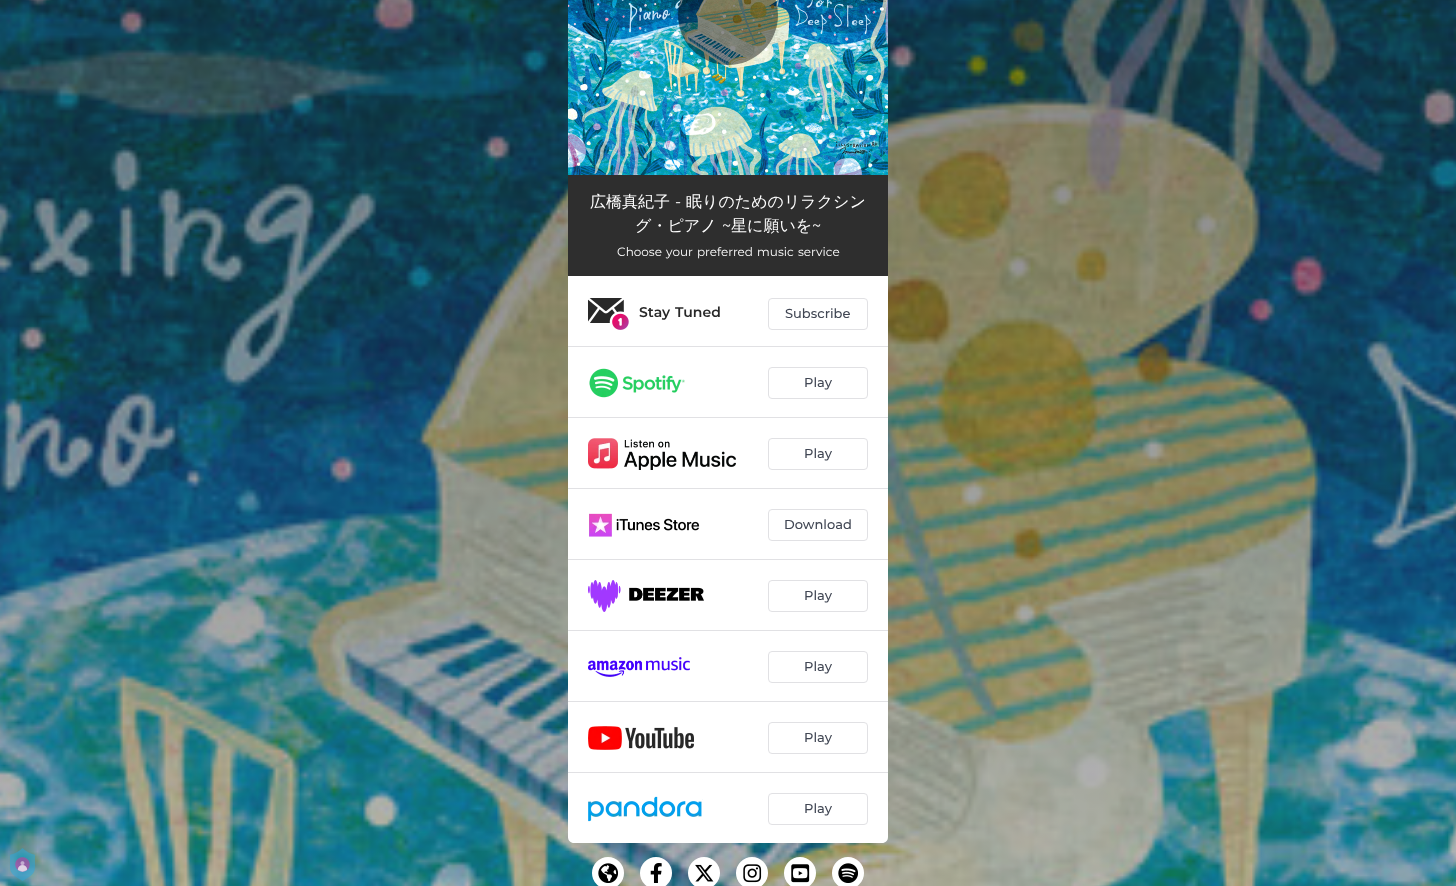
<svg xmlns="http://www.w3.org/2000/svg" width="1456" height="886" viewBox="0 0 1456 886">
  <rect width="100%" height="100%" fill="#fff"/>
  <image x="0" y="0" width="1456" height="886" href="img/1.png"/>
  <image x="568" y="0" width="320" height="175" href="img/2.png"/>
  <circle cx="728" cy="15" r="50" fill="#00000073"/>
  <path d="M568 175h320v101H568z" fill="#2e2e2e"/>
  <path d="M568 276H888V837C888 840.5 885.5 843 882 843H574C570.5 843 568 840.5 568 837Z" fill="#fff"/>
  <path d="M568 346h320v1H568z" fill="#e1e1e4"/>
  <image x="588" y="298" width="41" height="32" href="img/3.png"/>
  <rect x="768.5" y="298.5" width="99" height="31" rx="3.5" fill="none" stroke="#e1e1e4"/>
  <path d="M568 417h320v1H568z" fill="#e1e1e4"/>
  <image x="589" y="368" width="96" height="30" href="img/4.png"/>
  <rect x="768.5" y="367.5" width="99" height="31" rx="3.5" fill="none" stroke="#e1e1e4"/>
  <path d="M568 488h320v1H568z" fill="#e1e1e4"/>
  <image x="588" y="438" width="148" height="32" href="img/5.png"/>
  <rect x="768.5" y="438.5" width="99" height="31" rx="3.5" fill="none" stroke="#e1e1e4"/>
  <path d="M568 559h320v1H568z" fill="#e1e1e4"/>
  <image x="589" y="513" width="111" height="24" href="img/6.png"/>
  <rect x="768.5" y="509.5" width="99" height="31" rx="3.5" fill="none" stroke="#e1e1e4"/>
  <path d="M568 630h320v1H568z" fill="#e1e1e4"/>
  <image x="588" y="580" width="116" height="32" href="img/7.png"/>
  <rect x="768.5" y="580.5" width="99" height="31" rx="3.5" fill="none" stroke="#e1e1e4"/>
  <path d="M568 701h320v1H568z" fill="#e1e1e4"/>
  <image x="588" y="657" width="102" height="20" href="img/8.png"/>
  <rect x="768.5" y="651.5" width="99" height="31" rx="3.5" fill="none" stroke="#e1e1e4"/>
  <path d="M568 772h320v1H568z" fill="#e1e1e4"/>
  <image x="588" y="726" width="106" height="24" href="img/9.png"/>
  <rect x="768.5" y="722.5" width="99" height="31" rx="3.5" fill="none" stroke="#e1e1e4"/>
  <image x="588" y="796" width="115" height="26" href="img/10.png"/>
  <rect x="768.5" y="793.5" width="99" height="31" rx="3.5" fill="none" stroke="#e1e1e4"/>
  <circle cx="608" cy="873" r="16" fill="#fff"/>
  <image x="598" y="863" width="20" height="20" href="img/11.png"/>
  <circle cx="656" cy="873" r="16" fill="#fff"/>
  <image x="650" y="863" width="12" height="20" href="img/12.png"/>
  <circle cx="704" cy="873" r="16" fill="#fff"/>
  <image x="695" y="864" width="19" height="18" href="img/13.png"/>
  <circle cx="752" cy="873" r="16" fill="#fff"/>
  <image x="743" y="864" width="19" height="19" href="img/14.png"/>
  <circle cx="800" cy="873" r="16" fill="#fff"/>
  <image x="791" y="864" width="19" height="19" href="img/15.png"/>
  <circle cx="848" cy="873" r="16" fill="#fff"/>
  <image x="838" y="863" width="20" height="20" href="img/16.png"/>
  <image x="10" y="848" width="25" height="33" href="img/17.png"/>
  <text x="590" y="207" font-family="WenQuanYi Zen Hei" font-size="16" font-weight="500" fill="#fff">広橋真紀子</text>
  <text x="675" y="207" font-family="Montserrat" font-size="16" fill="#fff">-</text>
  <g font-family="WenQuanYi Zen Hei" font-size="16" font-weight="500" fill="#fff">
    <text x="686" y="207">眠りのためのリラクシン</text>
    <text x="635" y="231">グ・ピアノ</text>
  </g>
  <text x="722" y="231" font-family="Montserrat" font-size="16" fill="#fff">~</text>
  <text x="731" y="231" font-family="WenQuanYi Zen Hei" font-size="16" font-weight="500" fill="#fff">星に願いを</text>
  <text x="812" y="231" font-family="Montserrat" font-size="16" fill="#fff">~</text>
  <text x="617" y="256" word-spacing="1" font-family="Montserrat" font-size="12" fill="#fff">Choose your preferred music service</text>
  <text x="639" y="317" word-spacing="1" font-family="Montserrat" font-size="14" font-weight="600" fill="#282828">Stay Tuned</text>
  <g font-family="Montserrat" font-size="13" font-weight="500" fill="#414754">
    <text x="785" y="318">Subscribe</text>
    <text x="804" y="387">Play</text>
    <text x="804" y="458">Play</text>
    <text x="784" y="529">Download</text>
    <text x="804" y="600">Play</text>
    <text x="804" y="671">Play</text>
    <text x="804" y="742">Play</text>
    <text x="804" y="813">Play</text>
  </g>
</svg>
